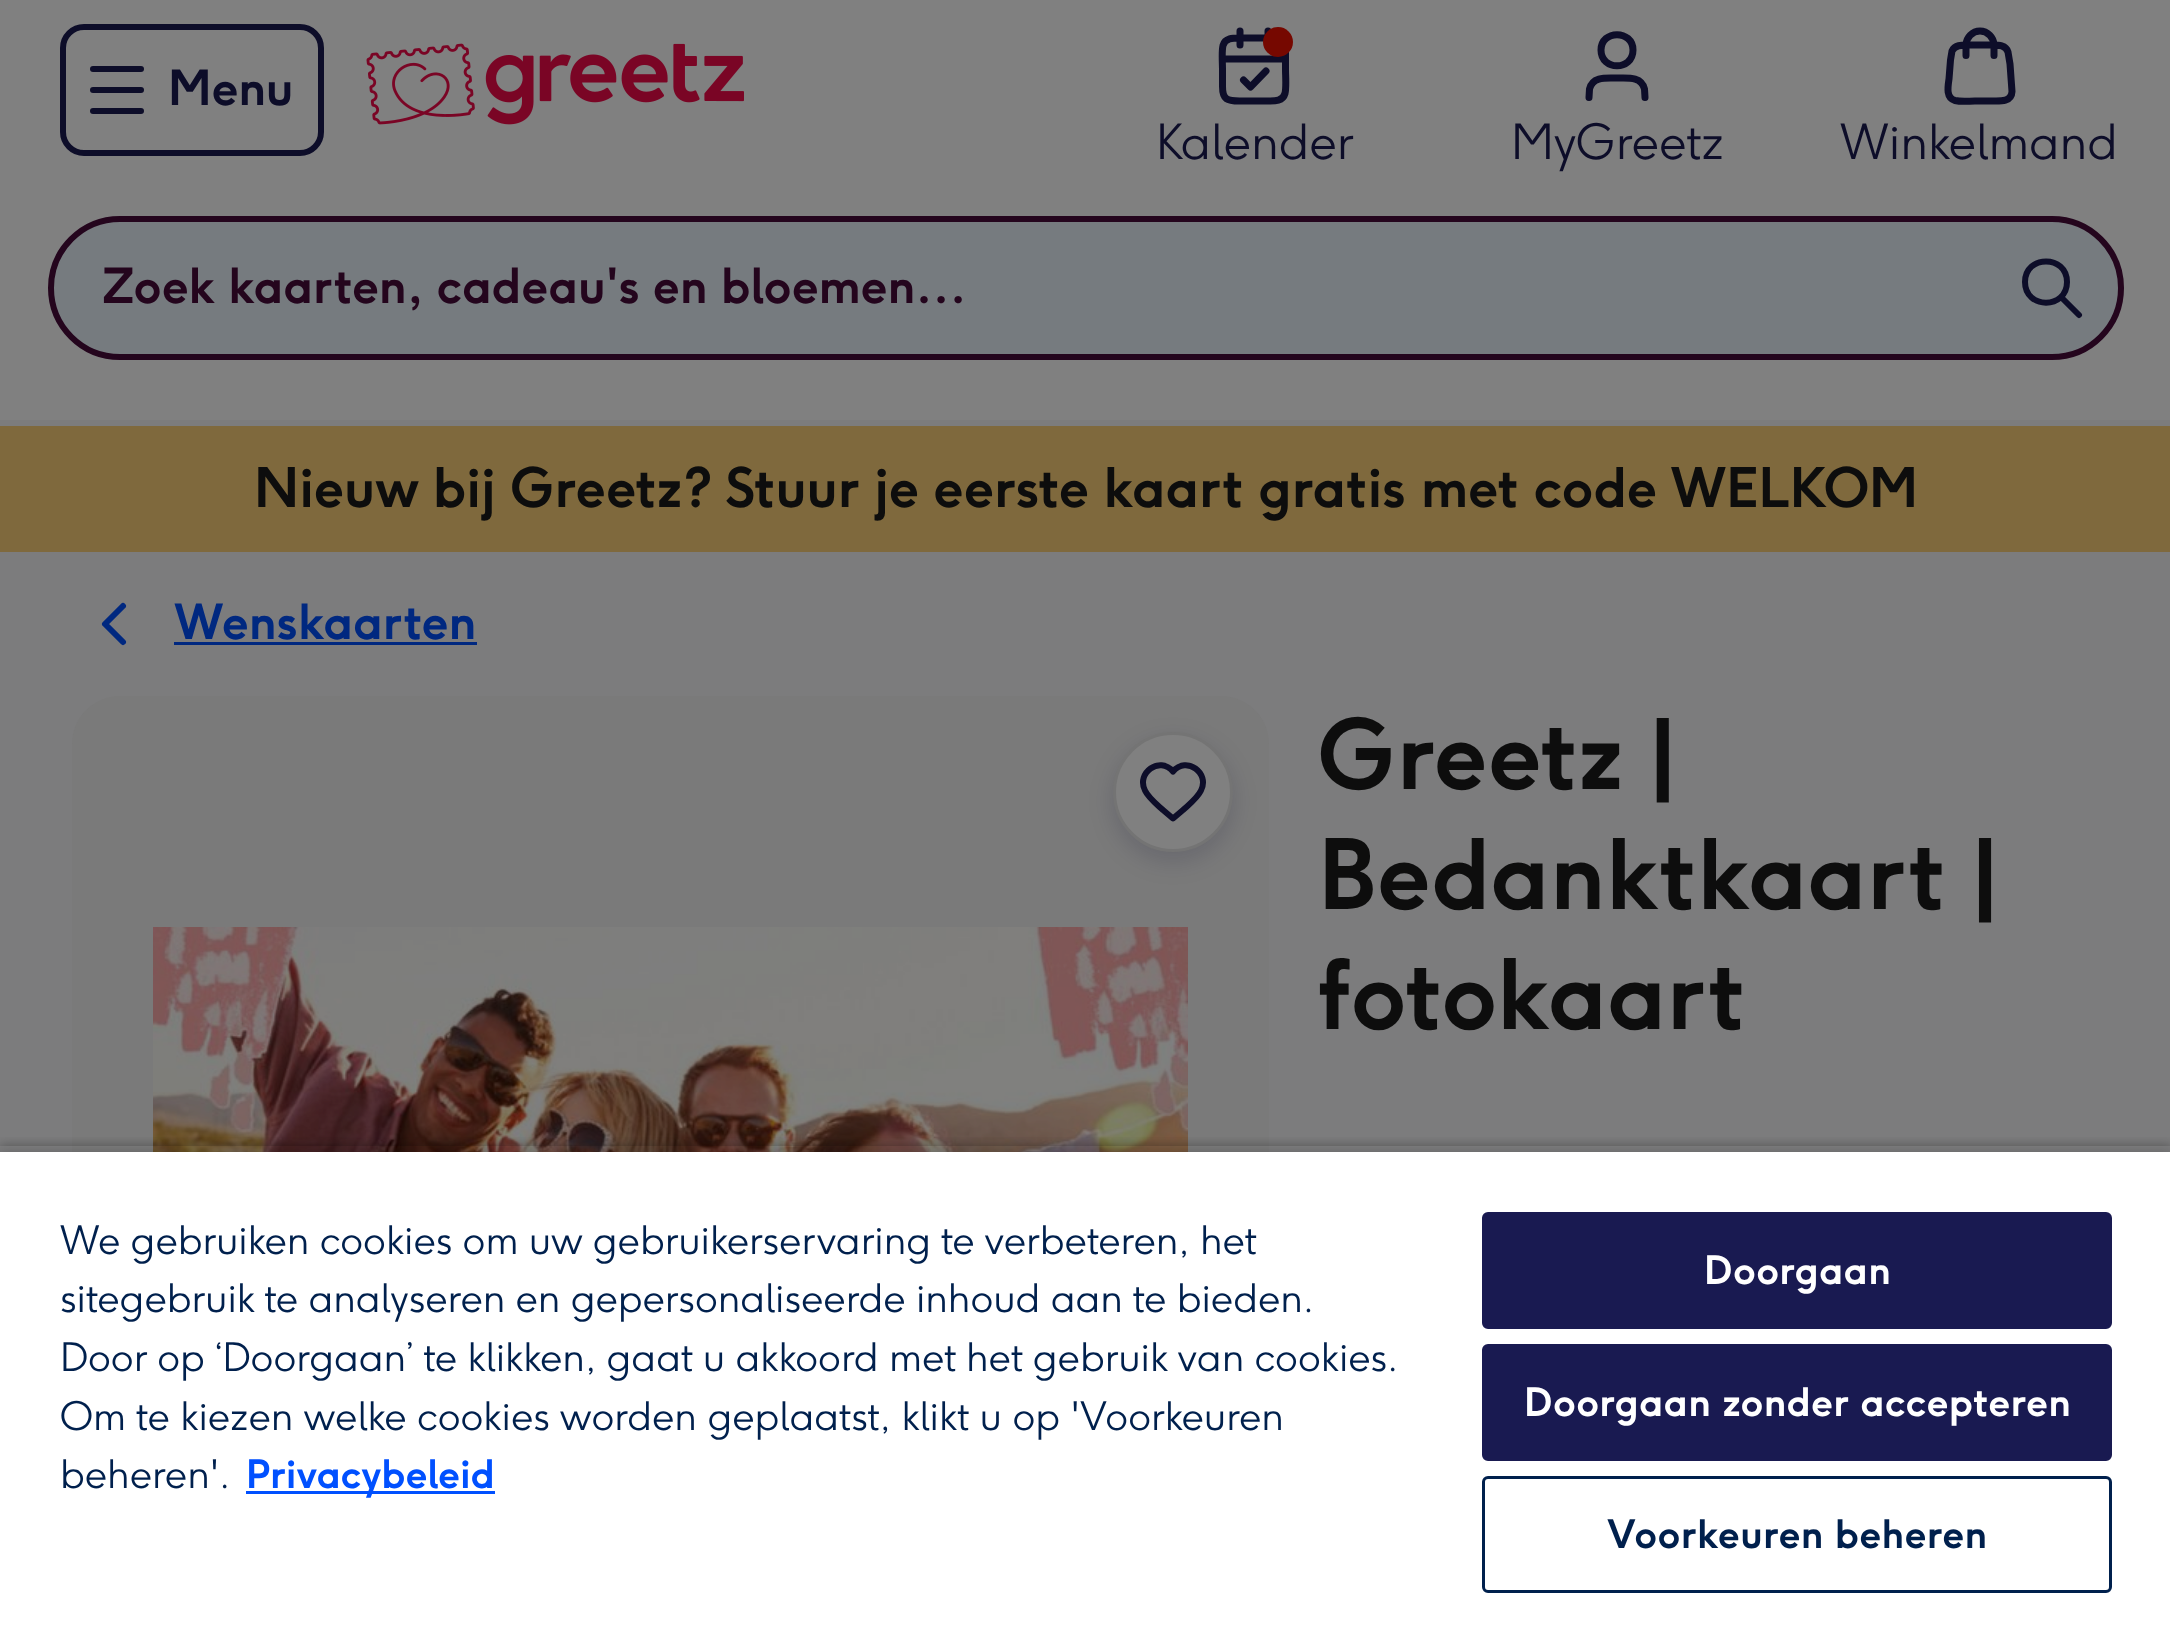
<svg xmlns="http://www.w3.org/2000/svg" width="2170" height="1640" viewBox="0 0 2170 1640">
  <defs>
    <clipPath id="clip1"><path d="M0 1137h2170v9H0z"/></clipPath>
    <clipPath id="clip2"><path d="M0 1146h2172v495H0z"/></clipPath>
  </defs>
  <rect width="100%" height="100%" fill="#7c7c7d"/>
  <path d="M0 0h2170v420H0z" fill="#808080"/>
  <rect x="63" y="27" width="258" height="126" rx="21" fill="none" stroke="#0d0d29" stroke-width="6"/>
  <rect x="90" y="66" width="54" height="6" rx="3" fill="#0d0d29"/>
  <rect x="90" y="87" width="54" height="6" rx="3" fill="#0d0d29"/>
  <rect x="90" y="108" width="54" height="6" rx="3" fill="#0d0d29"/>
  <image x="366" y="43" width="378" height="82" href="img/1.png"/>
  <path d="M1285.5 59H1222.5M1268 31V45M1240 31V45M1243.5 80L1250.5 87L1266 71M1239.5 101H1268.5C1275 101 1283 101 1285 93.5C1286.5 87 1285.5 76 1285.5 69.5V52.5C1285.5 39.5 1281 38 1268.5 38H1239.5C1233 38 1225 38 1223 45.5C1221.5 52 1222.5 63 1222.5 69.5V86.5C1222.5 99.5 1227 101 1239.5 101" fill="none" stroke="#0d0d29" stroke-width="7" stroke-linecap="round" stroke-linejoin="round"/>
  <circle cx="1278" cy="42" r="15" fill="#760800"/>
  <path d="M1645 97.5L1644.5 89C1641.5 76 1627 78 1617 78C1607 78 1592.5 76 1589.5 89L1589 97.5M1633 50C1633 71 1601 71 1601 50C1601 29.5 1633 29.5 1633 50" fill="none" stroke="#0d0d29" stroke-width="7" stroke-linecap="round" stroke-linejoin="round"/>
  <path d="M1994 55.5V45C1994 37.5 1987.5 31 1980 31C1972.5 31 1966 37.5 1966 45V55.5M1950.5 60L1949 79C1948 86 1945.5 98 1955 100.5C1961.5 102 1969 101 1975 101H1990C1998 101 2011.5 103 2012 91.5L2010 64L2008 52C2006 45 1998.5 45 1992.5 45H1967.5C1961.5 45 1955 45 1952 51L1950.5 60" fill="none" stroke="#0d0d29" stroke-width="7" stroke-linecap="round" stroke-linejoin="round"/>
  <rect x="51" y="219" width="2070" height="138" rx="69" fill="#767b7f" stroke="#24051d" stroke-width="6"/>
  <path d="M2079 315L2061 297M2067 282C2067 309.5 2025 309.5 2025 282C2025 254.5 2067 254.5 2067 282" fill="none" stroke="#0d0d29" stroke-width="6" stroke-linecap="round" stroke-linejoin="round"/>
  <path d="M0 426h2170v126H0z" fill="#7f693d"/>
  <path d="M123 642L105 624L123 606" fill="none" stroke="#002880" stroke-width="6" stroke-linecap="round" stroke-linejoin="round"/>
  <path d="M174 642h303v3H174z" fill="#002880"/>
  <rect x="72" y="696" width="1197" height="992" rx="48" fill="#7a7a7a"/>
  <image x="153" y="927" width="1035" height="225" href="img/2.png"/>
  <rect x="1113" y="741" width="120" height="120" rx="60" fill="#00022726" filter="blur(12px)"/>
  <circle cx="1173" cy="792" r="58.5" fill="#808080" stroke="#747474" stroke-width="3"/>
  <path d="M1173 771.5C1159.5 755.5 1136 773 1145 790.5C1148.5 798 1157 804.5 1163 810L1173 818.5L1183 810C1189 804.5 1197.5 798 1201 790.5C1210 773 1186.5 755.5 1173 771.5" fill="none" stroke="#0d0d29" stroke-width="6" stroke-linecap="round" stroke-linejoin="round"/>
  <g clip-path="url(#clip1)">
    <path d="M0 1146h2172v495H0z" fill="#00000059" filter="blur(6px)"/>
  </g>
  <g clip-path="url(#clip2)">
    <path d="M0 1152h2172v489H0z" fill="#00000033" filter="blur(6px)"/>
  </g>
  <path d="M0 1152h2170v488H0z" fill="#fff"/>
  <path d="M246 1491h249v3H246z" fill="#0050ff"/>
  <rect x="1483.5" y="1213.5" width="627" height="114" rx="4.5" fill="#191a51" stroke="#191a51" stroke-width="3"/>
  <rect x="1483.5" y="1345.5" width="627" height="114" rx="4.5" fill="#191a51" stroke="#191a51" stroke-width="3"/>
  <rect x="1483.5" y="1477.5" width="627" height="114" rx="4.5" fill="none" stroke="#00204d" stroke-width="3"/>
  <text x="168" y="105" font-family="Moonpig" font-size="48" font-weight="bold" fill="#0d0d29">Menu</text>
  <g font-family="Moonpig" font-size="48" font-weight="300" fill="#0d0d29">
    <text x="1156" y="159">Kalender</text>
    <text x="1511" y="159">MyGreetz</text>
    <text x="1840" y="159">Winkelmand</text>
  </g>
  <text x="102" y="303" font-family="Moonpig" font-size="48" font-weight="bold" fill="#24051d">Zoek kaarten, cadeau's en bloemen…</text>
  <text x="254" y="507" font-family="Moonpig" font-size="54" font-weight="bold" fill="#0d0d0d">Nieuw bij Greetz? Stuur je eerste kaart gratis met code WELKOM</text>
  <text x="174" y="639" font-family="Moonpig" font-size="48" font-weight="bold" fill="#002880">Wenskaarten</text>
  <g font-family="Moonpig" font-size="96" font-weight="bold" fill="#0d0d0d">
    <text x="1318" y="789">Greetz |</text>
    <text x="1318" y="909">Bedanktkaart |</text>
    <text x="1318" y="1029">fotokaart</text>
  </g>
  <g font-family="Moonpig" font-size="39" font-weight="300" fill="#00204d">
    <text x="60" y="1254" word-spacing="-0.25">We gebruiken cookies om uw gebruikerservaring te verbeteren, het</text>
    <text x="60" y="1312" word-spacing="-0.25">sitegebruik te analyseren en gepersonaliseerde inhoud aan te bieden.</text>
    <text x="60" y="1371" word-spacing="-0.25">Door op ‘Doorgaan’ te klikken, gaat u akkoord met het gebruik van cookies.</text>
    <text x="60" y="1430">Om te kiezen welke cookies worden geplaatst, klikt u op 'Voorkeuren</text>
    <text x="60" y="1488">beheren'.</text>
  </g>
  <text x="246" y="1488" font-family="Moonpig" font-size="39" font-weight="bold" fill="#0050ff">Privacybeleid</text>
  <g font-family="Moonpig" font-size="39" font-weight="bold" letter-spacing="0.4" fill="#fff">
    <text x="1704" y="1284">Doorgaan</text>
    <text x="1524" y="1416">Doorgaan zonder accepteren</text>
  </g>
  <text x="1607" y="1548" font-family="Moonpig" font-size="39" font-weight="bold" letter-spacing="0.4" fill="#00204d">Voorkeuren beheren</text>
</svg>
